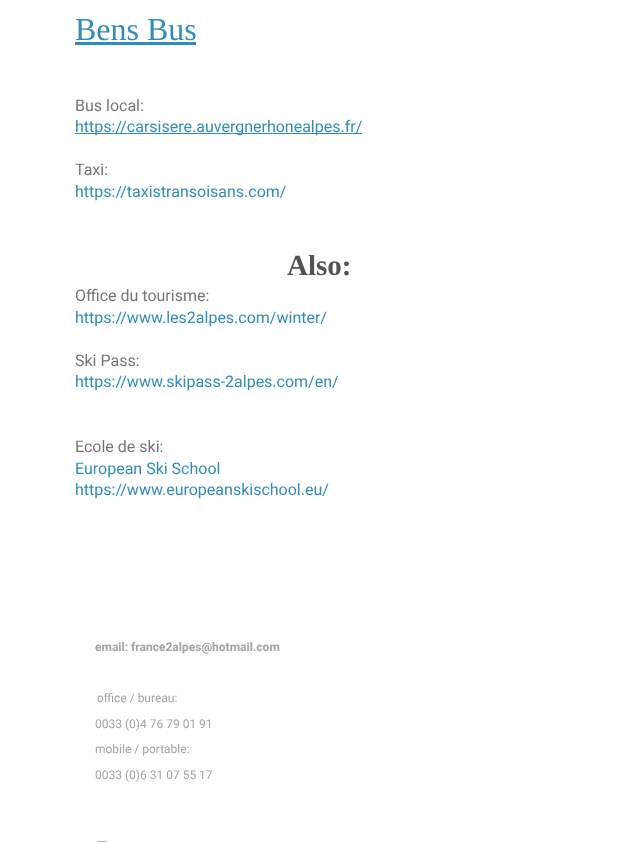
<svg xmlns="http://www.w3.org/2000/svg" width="639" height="842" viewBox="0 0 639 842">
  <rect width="100%" height="100%" fill="#fff"/>
  <path d="M75 42h121v3H75z" fill="#308cba"/>
  <path d="M75 133h287v1H75z" fill="#308cba"/>
  <image x="98" y="841" width="8" height="1" href="img/1.png"/>
  <text x="75" y="40" font-family="Liberation Serif" font-size="32" fill="#308cba">Bens Bus</text>
  <text x="75" y="111" font-family="Roboto" font-size="16" fill="#757575">Bus local:</text>
  <text x="75" y="132" font-family="Roboto" font-size="16" fill="#308cba">https://carsisere.auvergnerhonealpes.fr/</text>
  <text x="75" y="175" font-family="Roboto" font-size="16" fill="#757575">Taxi:</text>
  <text x="75" y="197" font-family="Roboto" font-size="16" fill="#308cba">https://taxistransoisans.com/</text>
  <text x="287" y="275" font-family="Liberation Serif" font-size="29" font-weight="bold" fill="#535353">Also:</text>
  <text x="75" y="301" font-family="Roboto" font-size="16" fill="#757575">Office du tourisme:</text>
  <text x="75" y="323" font-family="Roboto" font-size="16" fill="#308cba">https://www.les2alpes.com/winter/</text>
  <text x="75" y="366" font-family="Roboto" font-size="16" fill="#757575">Ski Pass:</text>
  <text x="75" y="387" font-family="Roboto" font-size="16" fill="#308cba">https://www.skipass-2alpes.com/en/</text>
  <text x="75" y="452" font-family="Roboto" font-size="16" fill="#757575">Ecole de ski:</text>
  <g font-family="Roboto" font-size="16" fill="#308cba">
    <text x="75" y="474">European Ski School</text>
    <text x="75" y="495">https://www.europeanskischool.eu/</text>
  </g>
  <text x="95" y="651" font-family="Roboto" font-size="12" font-weight="bold" fill="#a3a3a3">email: france2alpes@hotmail.com</text>
  <g font-family="Roboto" font-size="12" fill="#a3a3a3">
    <text x="97" y="702">office / bureau:</text>
    <text x="95" y="728">0033 (0)4 76 79 01 91</text>
    <text x="95" y="753">mobile / portable:</text>
    <text x="95" y="779">0033 (0)6 31 07 55 17</text>
  </g>
</svg>
